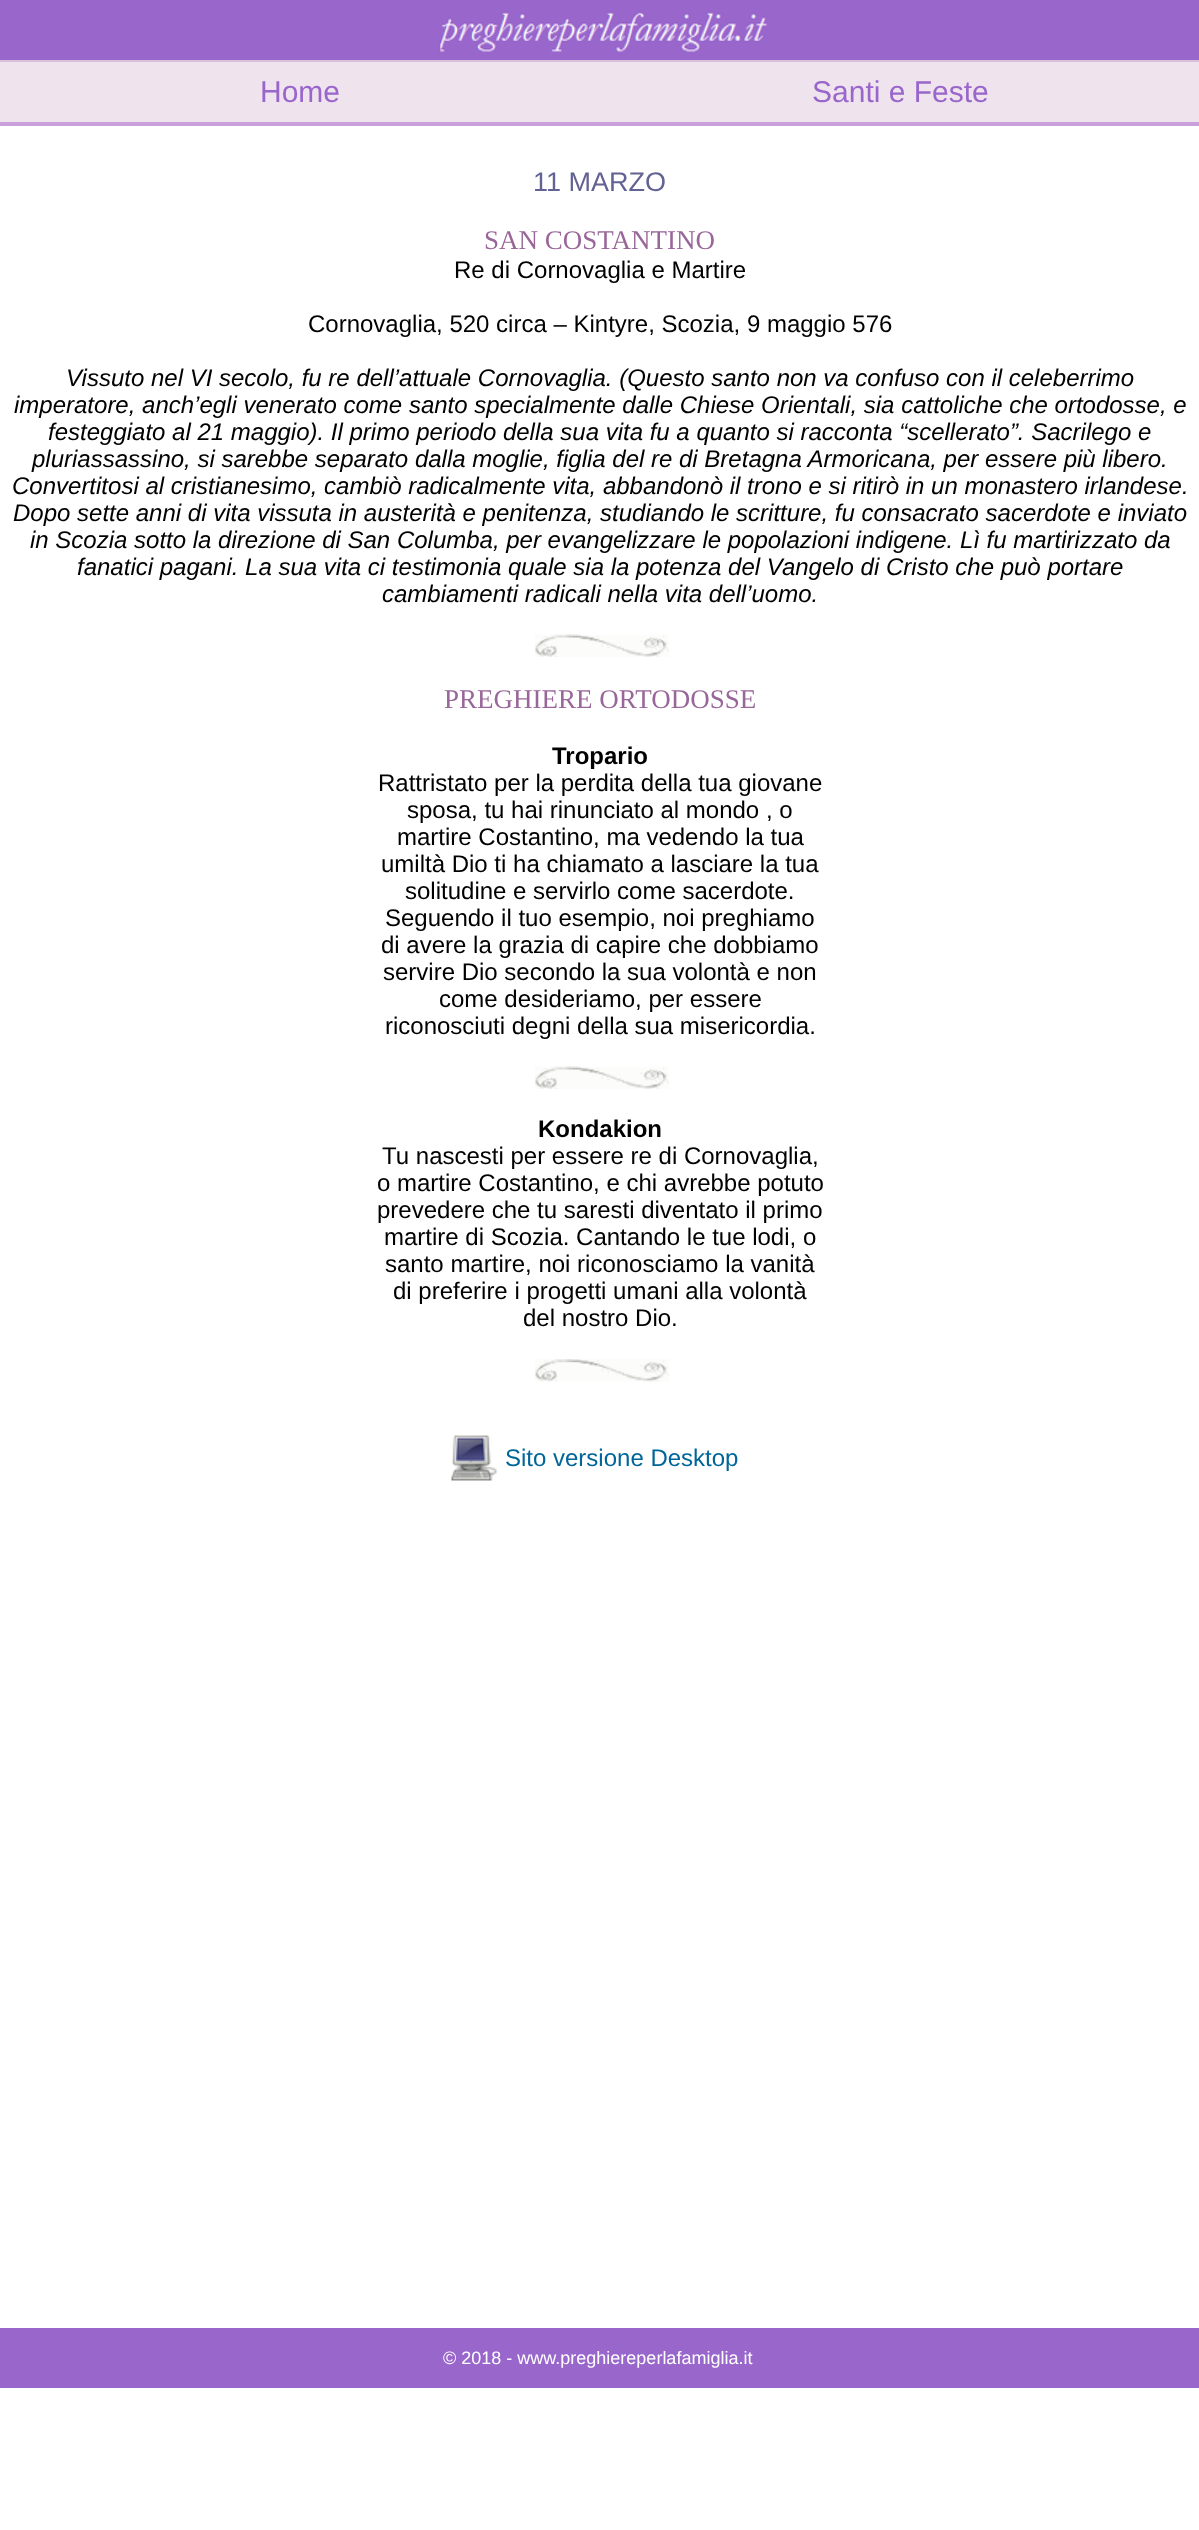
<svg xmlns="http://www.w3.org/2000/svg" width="1199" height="2530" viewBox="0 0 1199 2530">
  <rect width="100%" height="100%" fill="#fff"/>
  <path d="M0 0h1199v60H0z" fill="#96c"/>
  <path d="M0 60h1199v2H0z" fill="#d8bfd8"/>
  <image x="438" y="11" width="330" height="41" href="img/1.png"/>
  <path d="M0 122h1199v4H0z" fill="#c9a0dc"/>
  <path d="M0 62h1199v60H0z" fill="#efe3ed"/>
  <image x="535" y="634" width="134" height="23" href="img/2.png"/>
  <image x="535" y="1066" width="134" height="23" href="img/2.png"/>
  <image x="535" y="1359" width="134" height="23" href="img/3.png"/>
  <image x="451" y="1435" width="46" height="46" href="img/4.png"/>
  <path d="M0 2328h1199v60H0z" fill="#96c"/>
  <g font-family="Liberation Sans" font-size="30" fill="#96c">
    <text x="260" y="102">Home</text>
    <text x="812" y="102">Santi e Feste</text>
  </g>
  <text x="533" y="191" font-family="Liberation Sans" font-size="27" fill="#626293">11 MARZO</text>
  <text x="484" y="249" font-family="Liberation Serif" font-size="27" fill="#969">SAN COSTANTINO</text>
  <g font-family="Liberation Sans" font-size="24" fill="#000">
    <text x="454" y="278">Re di Cornovaglia e Martire</text>
    <text x="308" y="332">Cornovaglia, 520 circa – Kintyre, Scozia, 9 maggio 576</text>
  </g>
  <g font-family="Liberation Sans" font-size="24" font-style="italic" fill="#000">
    <text x="66" y="386">Vissuto nel VI secolo, fu re dell’attuale Cornovaglia. (Questo santo non va confuso con il celeberrimo</text>
    <text x="14" y="413">imperatore, anch’egli venerato come santo specialmente dalle Chiese Orientali, sia cattoliche che ortodosse, e</text>
    <text x="48" y="440">festeggiato al 21 maggio). Il primo periodo della sua vita fu a quanto si racconta “scellerato”. Sacrilego e</text>
    <text x="32" y="467">pluriassassino, si sarebbe separato dalla moglie, figlia del re di Bretagna Armoricana, per essere più libero.</text>
    <text x="12" y="494">Convertitosi al cristianesimo, cambiò radicalmente vita, abbandonò il trono e si ritirò in un monastero irlandese.</text>
    <text x="13" y="521">Dopo sette anni di vita vissuta in austerità e penitenza, studiando le scritture, fu consacrato sacerdote e inviato</text>
    <text x="30" y="548">in Scozia sotto la direzione di San Columba, per evangelizzare le popolazioni indigene. Lì fu martirizzato da</text>
    <text x="77" y="575">fanatici pagani. La sua vita ci testimonia quale sia la potenza del Vangelo di Cristo che può portare</text>
    <text x="382" y="602">cambiamenti radicali nella vita dell’uomo.</text>
  </g>
  <text x="444" y="708" font-family="Liberation Serif" font-size="27" fill="#969">PREGHIERE ORTODOSSE</text>
  <text x="552" y="764" font-family="Liberation Sans" font-size="24" font-weight="bold" fill="#000">Tropario</text>
  <g font-family="Liberation Sans" font-size="24" fill="#000">
    <text x="378" y="791">Rattristato per la perdita della tua giovane</text>
    <text x="407" y="818">sposa, tu hai rinunciato al mondo , o</text>
    <text x="397" y="845">martire Costantino, ma vedendo la tua</text>
    <text x="381" y="872">umiltà Dio ti ha chiamato a lasciare la tua</text>
    <text x="405" y="899">solitudine e servirlo come sacerdote.</text>
    <text x="385" y="926">Seguendo il tuo esempio, noi preghiamo</text>
    <text x="381" y="953">di avere la grazia di capire che dobbiamo</text>
    <text x="383" y="980">servire Dio secondo la sua volontà e non</text>
    <text x="439" y="1007">come desideriamo, per essere</text>
    <text x="385" y="1034">riconosciuti degni della sua misericordia.</text>
  </g>
  <text x="538" y="1137" font-family="Liberation Sans" font-size="24" font-weight="bold" fill="#000">Kondakion</text>
  <g font-family="Liberation Sans" font-size="24" fill="#000">
    <text x="382" y="1164">Tu nascesti per essere re di Cornovaglia,</text>
    <text x="377" y="1191">o martire Costantino, e chi avrebbe potuto</text>
    <text x="377" y="1218">prevedere che tu saresti diventato il primo</text>
    <text x="384" y="1245">martire di Scozia. Cantando le tue lodi, o</text>
    <text x="385" y="1272">santo martire, noi riconosciamo la vanità</text>
    <text x="393" y="1299">di preferire i progetti umani alla volontà</text>
    <text x="523" y="1326">del nostro Dio.</text>
  </g>
  <text x="505" y="1466" font-family="Liberation Sans" font-size="24" fill="#069">Sito versione Desktop</text>
  <text x="443" y="2364" font-family="Liberation Sans" font-size="18" fill="#fff">© 2018 - www.preghiereperlafamiglia.it</text>
</svg>
